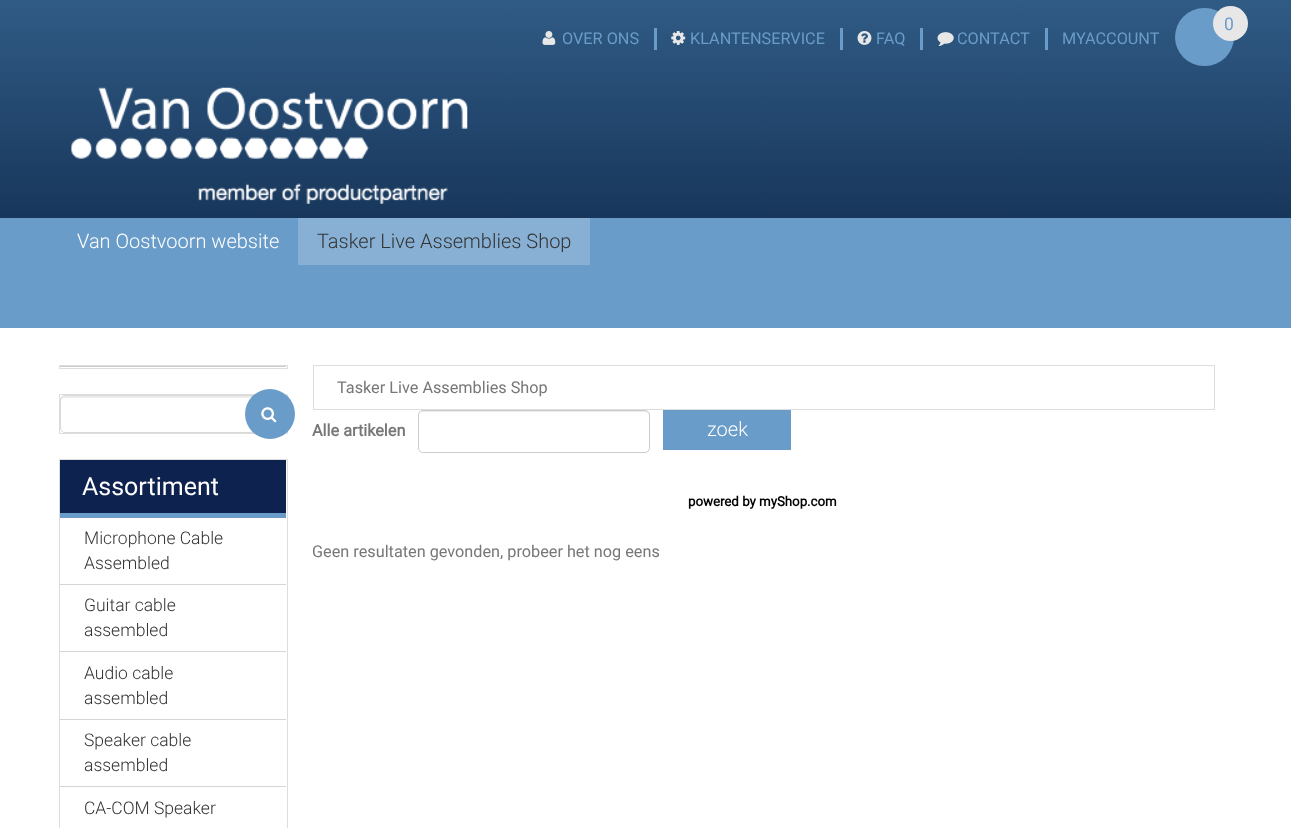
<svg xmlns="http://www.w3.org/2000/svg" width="1291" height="828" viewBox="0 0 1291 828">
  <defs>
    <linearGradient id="g1" gradientUnits="userSpaceOnUse" x1="646" y1="0" x2="646" y2="328"><stop offset="0" stop-color="#305b85"/><stop offset="1" stop-color="#0c2446"/></linearGradient>
  </defs>
  <rect width="100%" height="100%" fill="#fff"/>
  <path d="M0 0h1291v218H0z" fill="url(#g1)"/>
  <rect x="1175" y="8" width="59" height="58" rx="29" fill="#699cc9"/>
  <circle cx="1230.5" cy="23.5" r="17.5" fill="#e8e7e7"/>
  <path d="M654 28h3v22H654z" fill="#699cc9"/>
  <image x="542" y="31" width="14" height="14" href="img/1.png"/>
  <path d="M840 28h3v22H840z" fill="#699cc9"/>
  <image x="671" y="31" width="15" height="14" href="img/2.png"/>
  <path d="M920 28h3v22H920z" fill="#699cc9"/>
  <image x="857" y="31" width="15" height="14" href="img/3.png"/>
  <path d="M1045 28h3v22H1045z" fill="#699cc9"/>
  <image x="937" y="32" width="17" height="14" href="img/4.png"/>
  <image x="71" y="87" width="397" height="117" href="img/5.png"/>
  <path d="M0 218h1291v110H0z" fill="#699cc9"/>
  <path d="M298 218h292v47H298z" fill="#87b0d4"/>
  <path d="M59.5 365.5h228v3H59.5z" fill="none" stroke="#ddd"/>
  <path d="M60 366h226v1H60z" fill="#ccc"/>
  <path d="M59.5 394.5h228v39H59.5z" fill="none" stroke="#ddd"/>
  <path d="M65 398H281C283 398 285 399 285 401C285 398 284 396 281 396H65C62 396 61 398 61 401C61 399 63 398 65 398Z" fill="#ececec"/>
  <rect x="60.5" y="395.5" width="225" height="37" rx="4.5" fill="none" stroke="#d9d9d9"/>
  <circle cx="270" cy="414" r="25" fill="#699cc9"/>
  <image x="261" y="407" width="16" height="16" href="img/6.png"/>
  <path d="M59.5 459.5h228v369H59.5z" fill="none" stroke="#ddd"/>
  <path d="M60 460h226v53H60z" fill="#0d224f"/>
  <path d="M60 513h226v5H60z" fill="#699cc9"/>
  <path d="M60 584h226v1H60z" fill="#d6d5d5"/>
  <path d="M60 651h226v1H60z" fill="#d6d5d5"/>
  <path d="M60 719h226v1H60z" fill="#d6d5d5"/>
  <path d="M60 786h226v1H60z" fill="#d6d5d5"/>
  <path d="M313.5 365.5h901v44H313.5z" fill="none" stroke="#ddd"/>
  <path d="M422 412H645C647 412 649 414 649 416C649 413 648 411 645 411H423C420 411 419 413 419 416C419 414 420 412 422 412Z" fill="#ececec"/>
  <rect x="418.5" y="410.5" width="231" height="42" rx="4.5" fill="none" stroke="#ccc"/>
  <path d="M663 410h128v40H663z" fill="#699cc9"/>
  <text x="1224" y="30" font-family="Roboto" font-size="17.5" fill="#699cc9">0</text>
  <g font-family="Roboto" font-size="16.25" fill="#699cc9">
    <text x="562" y="44">OVER ONS</text>
    <text x="690" y="44">KLANTENSERVICE</text>
    <text x="876" y="44">FAQ</text>
    <text x="957" y="44">CONTACT</text>
    <text x="1062" y="44">MYACCOUNT</text>
  </g>
  <text x="77" y="248" font-family="Roboto" font-size="20" font-weight="300" fill="#fff">Van Oostvoorn website</text>
  <text x="317" y="248" font-family="Roboto" font-size="20" font-weight="300" fill="#333">Tasker Live Assemblies Shop</text>
  <text x="82" y="495" font-family="Roboto" font-size="25" fill="#fff">Assortiment</text>
  <g font-family="Roboto" font-size="17.5" font-weight="300" fill="#333">
    <text x="84" y="544">Microphone Cable</text>
    <text x="84" y="569">Assembled</text>
    <text x="84" y="611">Guitar cable</text>
    <text x="84" y="636">assembled</text>
    <text x="84" y="679">Audio cable</text>
    <text x="84" y="704">assembled</text>
    <text x="84" y="746">Speaker cable</text>
    <text x="84" y="771">assembled</text>
    <text x="84" y="814">CA-COM Speaker</text>
  </g>
  <text x="337" y="393" font-family="Roboto" font-size="16.25" fill="#777">Tasker Live Assemblies Shop</text>
  <text x="312" y="436" font-family="Roboto" font-size="16.25" font-weight="bold" fill="#777">Alle artikelen</text>
  <text x="707" y="436" font-family="Roboto" font-size="20" font-weight="300" fill="#fff">zoek</text>
  <text x="688" y="506" font-family="Roboto" font-size="13.25" font-weight="bold" fill="#000">powered by myShop.com</text>
  <text x="312" y="557" font-family="Roboto" font-size="16.25" fill="#777">Geen resultaten gevonden, probeer het nog eens</text>
</svg>
